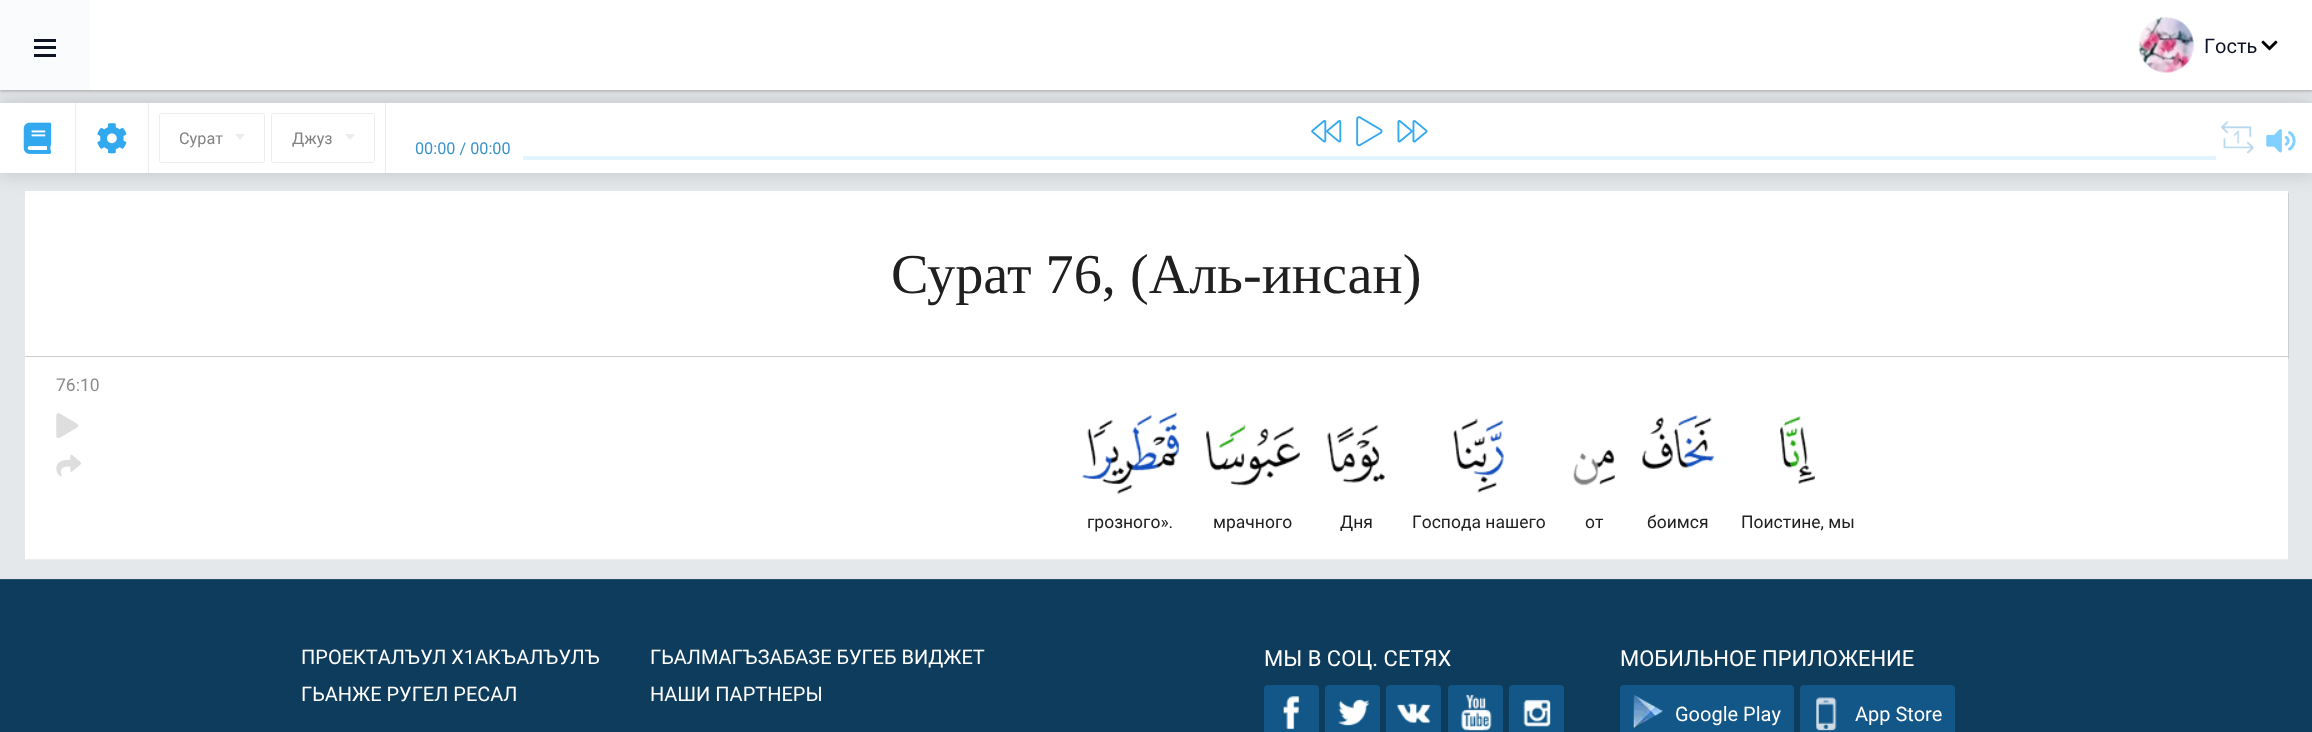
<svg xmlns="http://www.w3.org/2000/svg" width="2312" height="732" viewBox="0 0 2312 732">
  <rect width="100%" height="100%" fill="#e5e8eb"/>
  <path d="M0 1h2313v90H0z" fill="#00000033" filter="blur(1px)"/>
  <path d="M0 1h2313v90H0z" fill="#aaaaaa80" filter="blur(2.5px)"/>
  <path d="M26 193h2263v166H26z" fill="#0000001a" filter="blur(0.5px)"/>
  <path d="M25 191h2263v368H25z" fill="#fff"/>
  <path d="M-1 101h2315v73H-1z" fill="#00000026" filter="blur(9.5px)"/>
  <path d="M90 0h2222v90H90z" fill="#fff"/>
  <path d="M0 0h90v90H0z" fill="#fafbfc"/>
  <path d="M34 39h22v3H34z" fill="#0d1322"/>
  <path d="M34 46h22v3H34z" fill="#0d1322"/>
  <path d="M34 54h22v3H34z" fill="#0d1322"/>
  <image x="2138" y="17" width="56" height="56" href="img/1.png"/>
  <image x="2261" y="40" width="17" height="11" href="img/2.png"/>
  <path d="M0 103h2312v70H0z" fill="#fff"/>
  <image x="23" y="122" width="29" height="32" href="img/3.png"/>
  <path d="M148 103h1v70H148z" fill="#ececec"/>
  <path d="M75 103h1v70H75z" fill="#ececec"/>
  <image x="97" y="123" width="30" height="31" href="img/4.png"/>
  <rect x="159.5" y="113.5" width="105" height="49" rx="2" fill="none" stroke="#ececec"/>
  <path d="M235 134H245L240 140Z" fill="#ececec"/>
  <rect x="271.5" y="113.5" width="103" height="49" rx="2" fill="none" stroke="#ececec"/>
  <path d="M345 134H355L350 140Z" fill="#ececec"/>
  <path d="M385 103h1v70H385z" fill="#ececec"/>
  <image x="1311" y="120" width="31" height="23" href="img/5.png"/>
  <image x="1356" y="116" width="27" height="31" href="img/6.png"/>
  <image x="1397" y="120" width="31" height="23" href="img/7.png"/>
  <path d="M523 156h1693v4H523z" fill="#e0f5ff"/>
  <image x="2221" y="121" width="33" height="33" href="img/8.png"/>
  <image x="2266" y="129" width="30" height="24" href="img/9.png"/>
  <path d="M25 356h2263v1H25z" fill="#ccc"/>
  <path d="M25 559h2263v1H25z" fill="#eee"/>
  <image x="56" y="413" width="22" height="25" href="img/10.png"/>
  <image x="56" y="454" width="26" height="23" href="img/11.png"/>
  <image x="1082" y="412" width="97" height="82" href="img/12.png"/>
  <image x="1206" y="424" width="94" height="62" href="img/13.png"/>
  <image x="1327" y="424" width="58" height="59" href="img/14.png"/>
  <image x="1453" y="418" width="51" height="75" href="img/15.png"/>
  <image x="1573" y="449" width="42" height="37" href="img/16.png"/>
  <image x="1642" y="415" width="72" height="54" href="img/17.png"/>
  <image x="1780" y="416" width="35" height="68" href="img/18.png"/>
  <path d="M0 580h2312v152H0z" fill="#0e3c5c"/>
  <path d="M0 579h2312v1H0z" fill="#27506d"/>
  <rect x="1264" y="685" width="55" height="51" rx="4" fill="#125788"/>
  <image x="1282" y="696" width="18" height="34" href="img/19.png"/>
  <rect x="1325" y="685" width="55" height="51" rx="4" fill="#125788"/>
  <image x="1338" y="699" width="32" height="27" href="img/20.png"/>
  <rect x="1386" y="685" width="55" height="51" rx="4" fill="#125788"/>
  <image x="1397" y="703" width="34" height="21" href="img/21.png"/>
  <rect x="1448" y="685" width="55" height="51" rx="4" fill="#125788"/>
  <image x="1461" y="694" width="31" height="37" href="img/22.png"/>
  <rect x="1509" y="685" width="55" height="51" rx="4" fill="#125788"/>
  <image x="1523" y="699" width="28" height="28" href="img/23.png"/>
  <rect x="1620" y="685" width="174" height="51" rx="4" fill="#125788"/>
  <image x="1633" y="695" width="30" height="34" href="img/24.png"/>
  <rect x="1800" y="685" width="155" height="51" rx="4" fill="#125788"/>
  <image x="1816" y="697" width="21" height="34" href="img/25.png"/>
  <text x="2204" y="53" font-family="Roboto" font-size="20" fill="#0d1322">Гость</text>
  <g font-family="Roboto" font-size="16.25" fill="#828282">
    <text x="179" y="144">Сурат</text>
    <text x="292" y="144">Джуз</text>
  </g>
  <text x="415" y="154" font-family="Roboto" font-size="16.25" fill="#3993c9">00:00 / 00:00</text>
  <text x="891" y="293" font-family="Liberation Serif" font-size="56.25" fill="#202020">Сурат 76, (Аль-инсан)</text>
  <text x="56" y="391" font-family="Roboto" font-size="17.5" fill="#8c8c8c">76:10</text>
  <g font-family="Roboto" font-size="17.5" fill="#202020">
    <text x="1087" y="528">грозного».</text>
    <text x="1213" y="528">мрачного</text>
    <text x="1340" y="528">Дня</text>
    <text x="1412" y="528">Господа нашего</text>
    <text x="1585" y="528">от</text>
    <text x="1647" y="528">боимся</text>
    <text x="1741" y="528">Поистине, мы</text>
  </g>
  <g font-family="Roboto" font-size="20" fill="#fff">
    <text x="301" y="664">ПРОЕКТАЛЪУЛ Х1АКЪАЛЪУЛЪ</text>
    <text x="301" y="701">ГЬАНЖЕ РУГЕЛ РЕСАЛ</text>
    <text x="650" y="664">ГЬАЛМАГЪЗАБАЗЕ БУГЕБ ВИДЖЕТ</text>
    <text x="650" y="701">НАШИ ПАРТНЕРЫ</text>
  </g>
  <g font-family="Roboto" font-size="22" fill="#fff">
    <text x="1264" y="666">МЫ В СОЦ. СЕТЯХ</text>
    <text x="1620" y="666">МОБИЛЬНОЕ ПРИЛОЖЕНИЕ</text>
  </g>
  <g font-family="Roboto" font-size="20" fill="#fff">
    <text x="1675" y="721">Google Play</text>
    <text x="1855" y="721">App Store</text>
  </g>
</svg>
